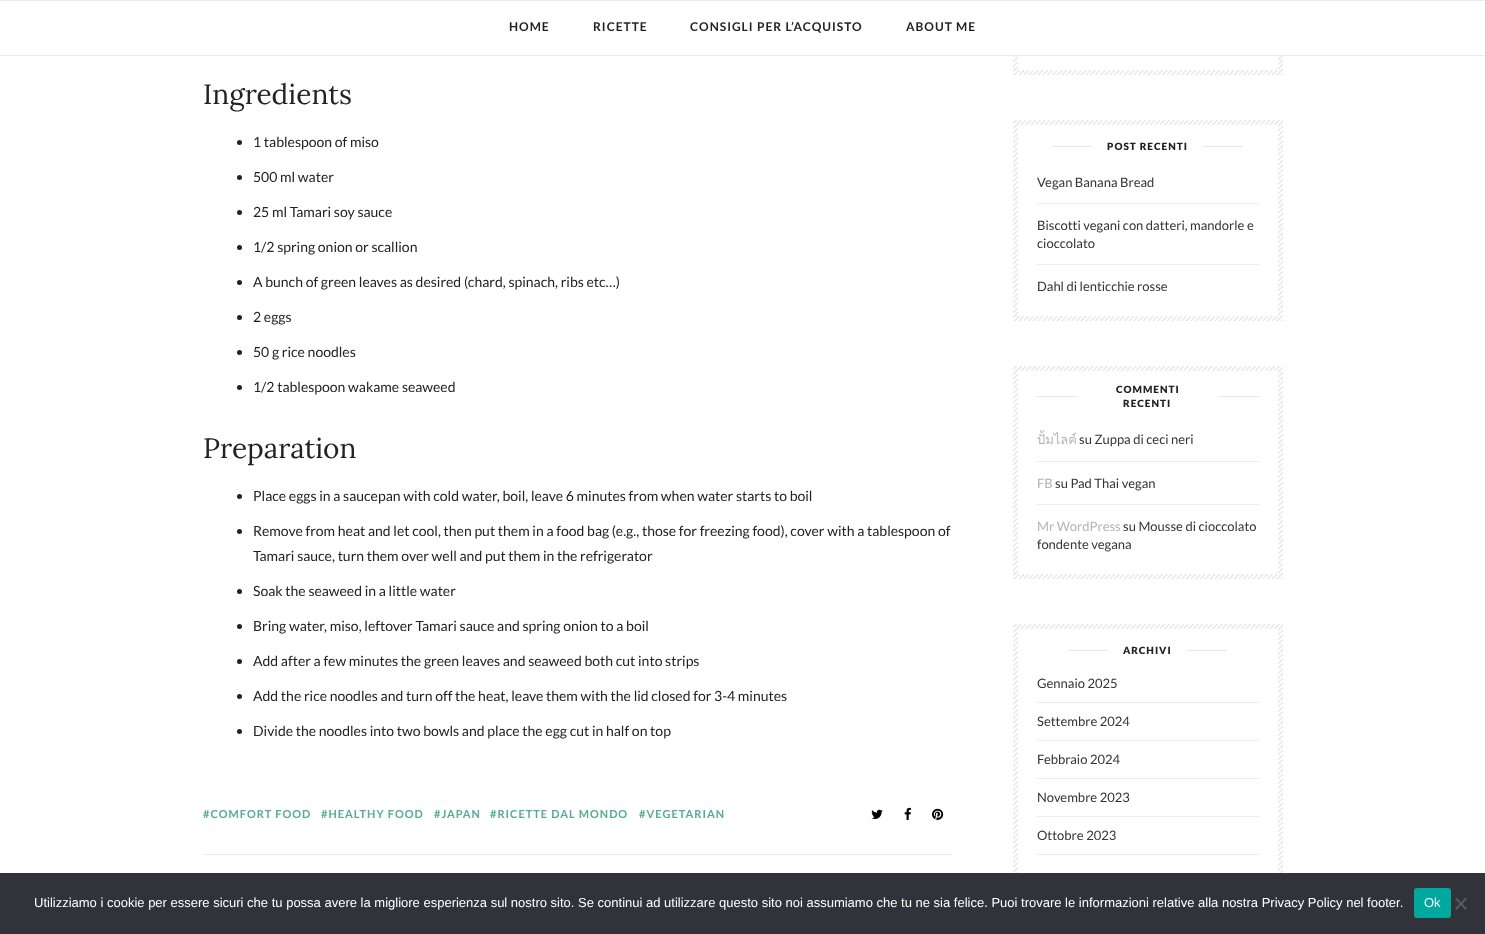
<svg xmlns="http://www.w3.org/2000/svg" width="1485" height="934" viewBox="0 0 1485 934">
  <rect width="100%" height="100%" fill="#fff"/>
  <path d="M0 0h1485v1H0z" fill="#ececec"/>
  <path d="M0 55h1485v1H0z" fill="#ececec"/>
  <circle cx="239.5" cy="142.5" r="2.5" fill="#222"/>
  <circle cx="239.5" cy="177.5" r="2.5" fill="#222"/>
  <circle cx="239.5" cy="212.5" r="2.5" fill="#222"/>
  <circle cx="239.5" cy="247.5" r="2.5" fill="#222"/>
  <circle cx="239.5" cy="282.5" r="2.5" fill="#222"/>
  <circle cx="239.5" cy="317.5" r="2.5" fill="#222"/>
  <circle cx="239.5" cy="352.5" r="2.5" fill="#222"/>
  <circle cx="239.5" cy="387.5" r="2.5" fill="#222"/>
  <circle cx="239.5" cy="496.5" r="2.5" fill="#222"/>
  <circle cx="239.5" cy="531.5" r="2.5" fill="#222"/>
  <circle cx="239.5" cy="591.5" r="2.5" fill="#222"/>
  <circle cx="239.5" cy="626.5" r="2.5" fill="#222"/>
  <circle cx="239.5" cy="661.5" r="2.5" fill="#222"/>
  <circle cx="239.5" cy="696.5" r="2.5" fill="#222"/>
  <circle cx="239.5" cy="731.5" r="2.5" fill="#222"/>
  <path d="M203 854h750v1H203z" fill="#ebebeb"/>
  <image x="871" y="809" width="12" height="10" href="img/1.png"/>
  <image x="904" y="807" width="7" height="13" href="img/2.png"/>
  <image x="932" y="808" width="12" height="12" href="img/3.png"/>
  <image x="1013" y="56" width="270" height="19" href="img/4.png"/>
  <image x="1013" y="120" width="270" height="201" href="img/5.png"/>
  <path d="M1052 146h40v1H1052z" fill="#e7e7e7"/>
  <path d="M1203 146h40v1H1203z" fill="#e7e7e7"/>
  <path d="M1037 203h222v1H1037z" fill="#ebebeb"/>
  <path d="M1037 264h222v1H1037z" fill="#ebebeb"/>
  <image x="1013" y="366" width="270" height="213" href="img/6.png"/>
  <path d="M1037 396h40v1H1037z" fill="#e7e7e7"/>
  <path d="M1219 396h40v1H1219z" fill="#e7e7e7"/>
  <path d="M1037 461h222v1H1037z" fill="#ebebeb"/>
  <path d="M1037 504h222v1H1037z" fill="#ebebeb"/>
  <image x="1013" y="624" width="270" height="249" href="img/7.png"/>
  <path d="M1068 650h40v1H1068z" fill="#e7e7e7"/>
  <path d="M1187 650h40v1H1187z" fill="#e7e7e7"/>
  <path d="M1037 702h222v1H1037z" fill="#ebebeb"/>
  <path d="M1037 740h222v1H1037z" fill="#ebebeb"/>
  <path d="M1037 778h222v1H1037z" fill="#ebebeb"/>
  <path d="M1037 816h222v1H1037z" fill="#ebebeb"/>
  <path d="M1037 854h222v1H1037z" fill="#ebebeb"/>
  <path d="M0 873h1485v61H0z" fill="#32323a"/>
  <rect x="1414" y="888" width="37" height="30" rx="3" fill="#00a99d"/>
  <path d="M1465.5 897.5L1467 899L1456.5 910L1455 908.5Z" fill="#59595d"/>
  <path d="M1455 899L1456.5 897.5L1467 908.5L1465.5 910Z" fill="#59595d"/>
  <g font-family="Lato" font-size="12" font-weight="bold" letter-spacing="1" fill="#222">
    <text x="509" y="31">HOME</text>
    <text x="593" y="31">RICETTE</text>
    <text x="690" y="31">CONSIGLI PER L’ACQUISTO</text>
    <text x="906" y="31">ABOUT ME</text>
  </g>
  <text x="203" y="104" font-family="Lora" font-size="28" fill="#222">Ingredients</text>
  <g font-family="Lato" font-size="14" fill="#222">
    <text x="253" y="147">1 tablespoon of miso</text>
    <text x="253" y="182">500 ml water</text>
    <text x="253" y="217">25 ml Tamari soy sauce</text>
    <text x="253" y="252">1/2 spring onion or scallion</text>
    <text x="253" y="287">A bunch of green leaves as desired (chard, spinach, ribs etc…)</text>
    <text x="253" y="322">2 eggs</text>
    <text x="253" y="357">50 g rice noodles</text>
    <text x="253" y="392">1/2 tablespoon wakame seaweed</text>
  </g>
  <text x="203" y="458" font-family="Lora" font-size="28" fill="#222">Preparation</text>
  <g font-family="Lato" font-size="14" fill="#222">
    <text x="253" y="501">Place eggs in a saucepan with cold water, boil, leave 6 minutes from when water starts to boil</text>
    <text x="253" y="536">Remove from heat and let cool, then put them in a food bag (e.g., those for freezing food), cover with a tablespoon of</text>
    <text x="253" y="561">Tamari sauce, turn them over well and put them in the refrigerator</text>
    <text x="253" y="596">Soak the seaweed in a little water</text>
    <text x="253" y="631">Bring water, miso, leftover Tamari sauce and spring onion to a boil</text>
    <text x="253" y="666">Add after a few minutes the green leaves and seaweed both cut into strips</text>
    <text x="253" y="701">Add the rice noodles and turn off the heat, leave them with the lid closed for 3-4 minutes</text>
    <text x="253" y="736">Divide the noodles into two bowls and place the egg cut in half on top</text>
  </g>
  <g font-family="Lato" font-size="11" font-weight="bold" letter-spacing="1" fill="#53ae91">
    <text x="203" y="818">#COMFORT FOOD</text>
    <text x="321" y="818">#HEALTHY FOOD</text>
    <text x="434" y="818">#JAPAN</text>
    <text x="490" y="818">#RICETTE DAL MONDO</text>
    <text x="639" y="818">#VEGETARIAN</text>
  </g>
  <text x="1107" y="150" font-family="Lato" font-size="10" font-weight="900" letter-spacing="1" fill="#222">POST RECENTI</text>
  <g font-family="Lato" font-size="13" fill="#353535">
    <text x="1037" y="187">Vegan Banana Bread</text>
    <text x="1037" y="230">Biscotti vegani con datteri, mandorle e</text>
    <text x="1037" y="248">cioccolato</text>
    <text x="1037" y="291">Dahl di lenticchie rosse</text>
  </g>
  <g font-family="Lato" font-size="10" font-weight="900" letter-spacing="1" fill="#222">
    <text x="1116" y="393">COMMENTI</text>
    <text x="1123" y="407">RECENTI</text>
  </g>
  <text x="1037" y="444" font-family="Loma" font-size="13" fill="#b4b4b4">ปั้มไลค์</text>
  <text x="1079" y="444" font-family="Lato" font-size="13" fill="#353535">su Zuppa di ceci neri</text>
  <text x="1037" y="488" font-family="Lato" font-size="13" fill="#b4b4b4">FB</text>
  <text x="1055" y="488" font-family="Lato" font-size="13" fill="#353535">su Pad Thai vegan</text>
  <text x="1037" y="531" font-family="Lato" font-size="13" fill="#b4b4b4">Mr WordPress</text>
  <g font-family="Lato" font-size="13" fill="#353535">
    <text x="1123" y="531">su Mousse di cioccolato</text>
    <text x="1037" y="549">fondente vegana</text>
  </g>
  <text x="1123" y="654" font-family="Lato" font-size="10" font-weight="900" letter-spacing="1" fill="#222">ARCHIVI</text>
  <g font-family="Lato" font-size="13" fill="#353535">
    <text x="1037" y="688">Gennaio 2025</text>
    <text x="1037" y="726">Settembre 2024</text>
    <text x="1037" y="764">Febbraio 2024</text>
    <text x="1037" y="802">Novembre 2023</text>
    <text x="1037" y="840">Ottobre 2023</text>
  </g>
  <g font-family="Liberation Sans" font-size="13" fill="#fff">
    <text x="34" y="907">Utilizziamo i cookie per essere sicuri che tu possa avere la migliore esperienza sul nostro sito. Se continui ad utilizzare questo sito noi assumiamo che tu ne sia felice. Puoi trovare le informazioni relative alla nostra Privacy Policy nel footer.</text>
    <text x="1424" y="907">Ok</text>
  </g>
</svg>
